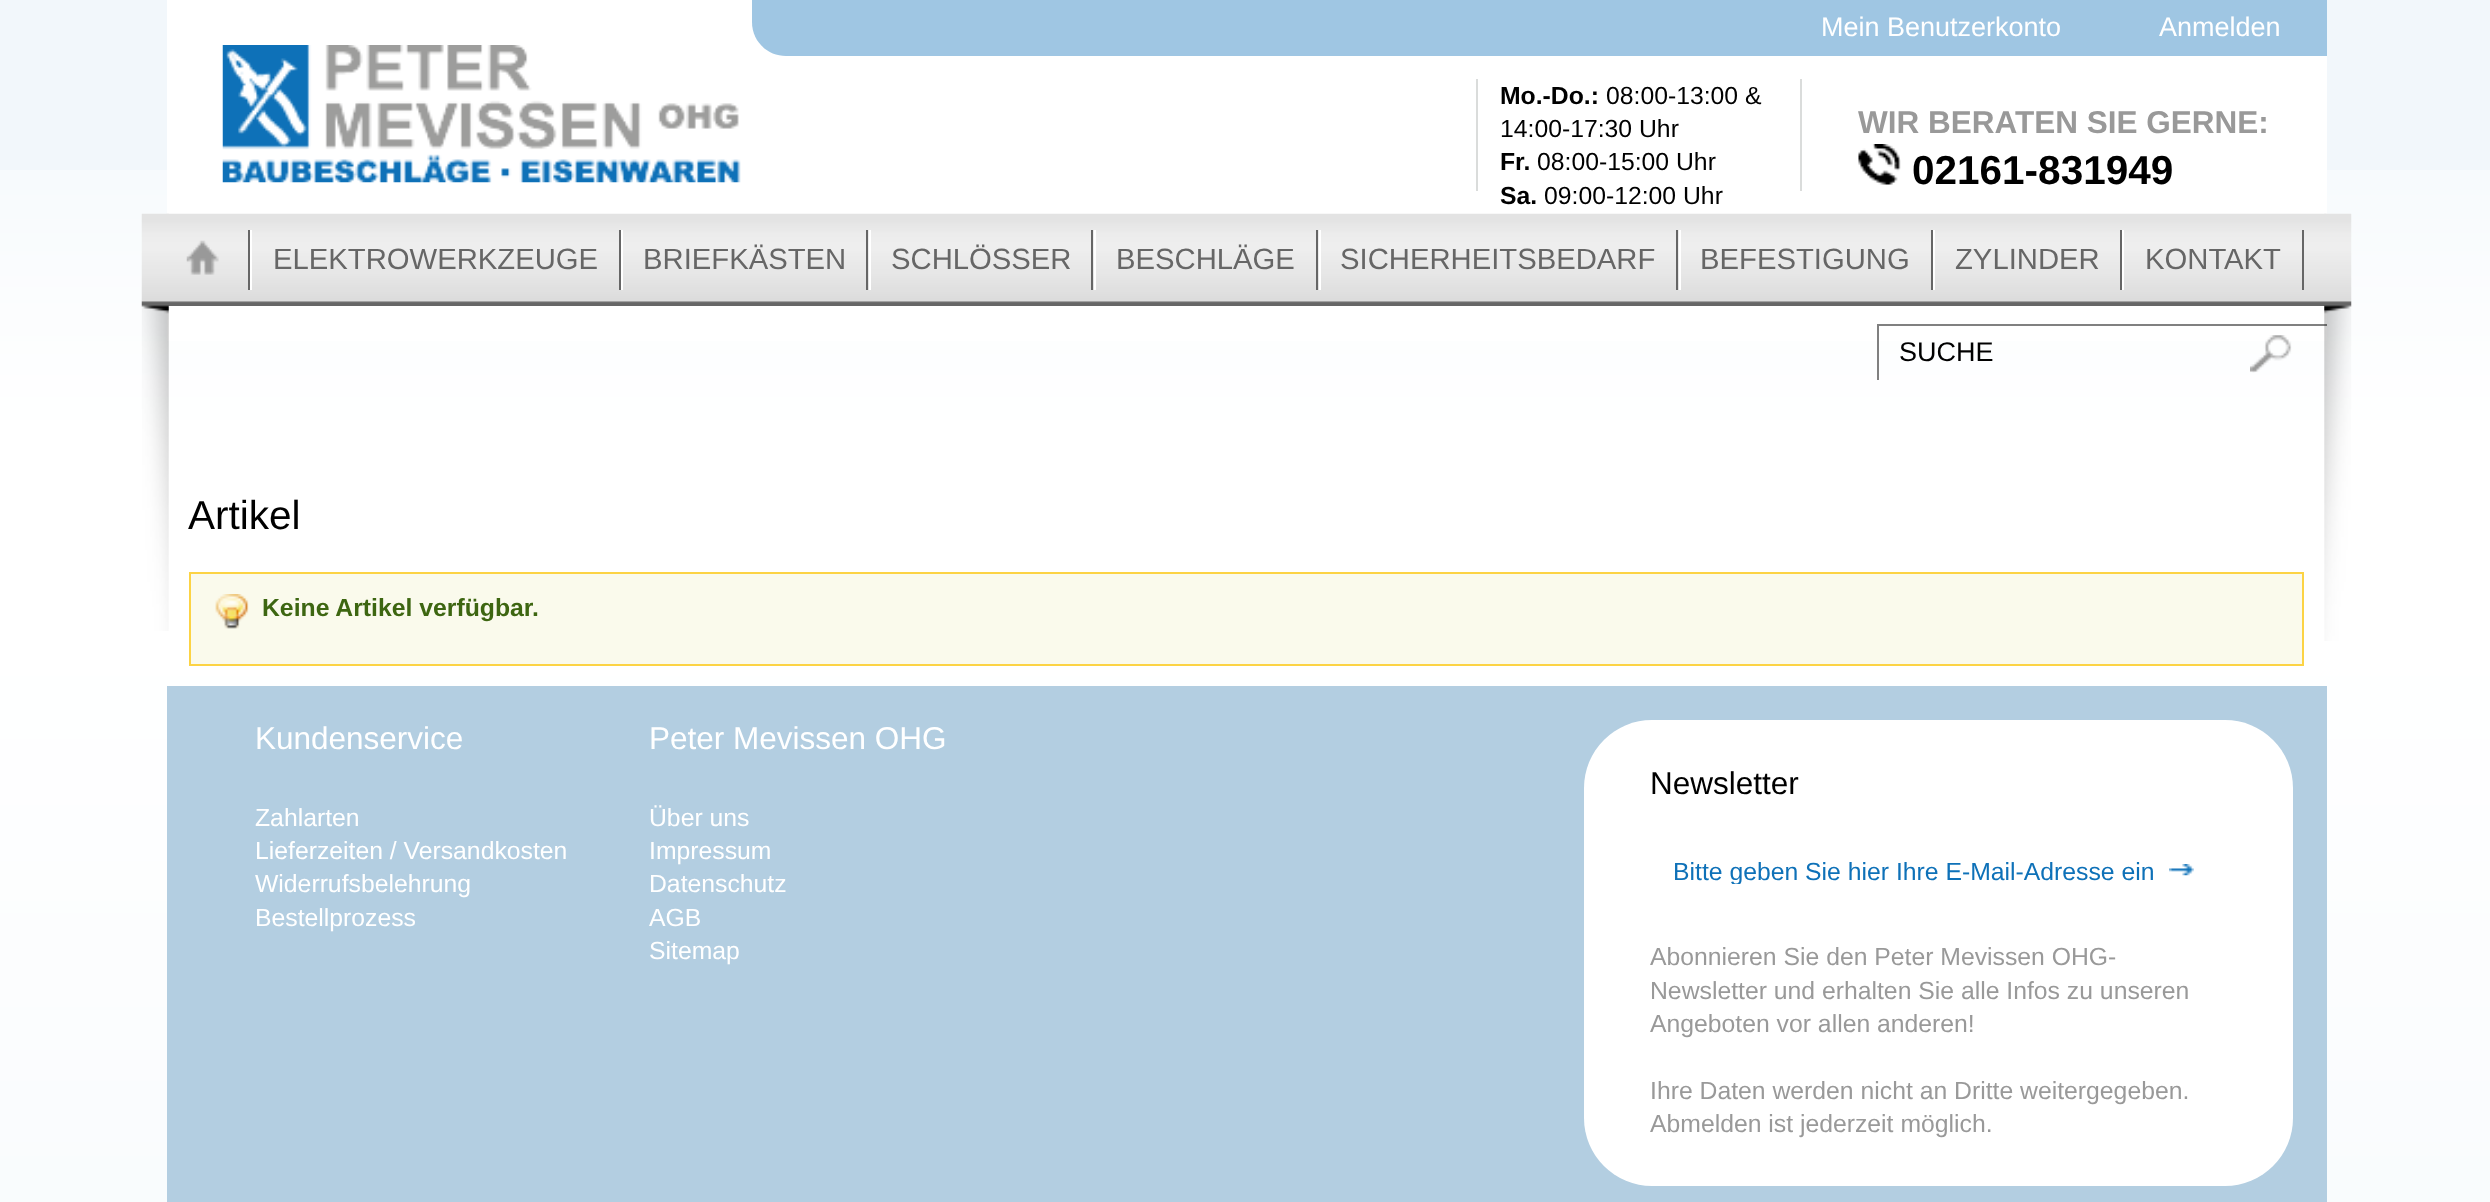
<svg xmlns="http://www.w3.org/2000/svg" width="2490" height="1202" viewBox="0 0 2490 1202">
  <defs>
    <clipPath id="clip1"><path d="M1877 324h450v56H1877z"/></clipPath>
    <clipPath id="clip2"><path d="M1674 857h484v27H1674z"/></clipPath>
  </defs>
  <rect width="100%" height="100%" fill="#f2f7fb"/>
  <image x="0" y="170" width="2490" height="1032" href="img/1.png"/>
  <path d="M167 0h2160v341H167z" fill="#fff"/>
  <path d="M752 0H2327V56H786C767 56 752 41 752 22Z" fill="#9fc6e3"/>
  <image x="222" y="45" width="519" height="138" href="img/2.png"/>
  <path d="M1476 79h2v112H1476z" fill="#dadcdb"/>
  <path d="M1800 79h2v112H1800z" fill="#dadcdb"/>
  <image x="1858" y="144" width="43" height="41" href="img/3.png"/>
  <image x="166" y="213" width="2161" height="93" href="img/4.png"/>
  <image x="141" y="213" width="28" height="418" href="img/5.png"/>
  <path d="M248 230h2v60H248z" fill="#666"/>
  <image x="186" y="240" width="33" height="35" href="img/6.png"/>
  <path d="M619 230h2v60H619z" fill="#666"/>
  <path d="M250 230h2v60H250z" fill="#fff"/>
  <path d="M866 230h2v60H866z" fill="#666"/>
  <path d="M621 230h2v60H621z" fill="#fff"/>
  <path d="M1091 230h2v60H1091z" fill="#666"/>
  <path d="M869 230h2v60H869z" fill="#fff"/>
  <path d="M1316 230h2v60H1316z" fill="#666"/>
  <path d="M1094 230h2v60H1094z" fill="#fff"/>
  <path d="M1676 230h2v60H1676z" fill="#666"/>
  <path d="M1319 230h2v60H1319z" fill="#fff"/>
  <path d="M1931 230h2v60H1931z" fill="#666"/>
  <path d="M1679 230h2v60H1679z" fill="#fff"/>
  <path d="M2120 230h2v60H2120z" fill="#666"/>
  <path d="M1933 230h2v60H1933z" fill="#fff"/>
  <path d="M2302 230h2v60H2302z" fill="#666"/>
  <path d="M2122 230h2v60H2122z" fill="#fff"/>
  <g clip-path="url(#clip1)">
    <path d="M1654 101H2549V603H1654ZM1879 326H2329V382H1879Z" fill="#808080" fill-rule="evenodd"/>
  </g>
  <image x="2324" y="213" width="28" height="428" href="img/7.png"/>
  <image x="2250" y="335" width="42" height="38" href="img/8.png"/>
  <path d="M191 574h2111v90H191z" fill="#fafaec"/>
  <image x="215" y="594" width="34" height="35" href="img/9.png"/>
  <path d="M190 573h2113v92H190z" fill="none" stroke="#fcd344" stroke-width="2"/>
  <path d="M167 686h2160v516H167z" fill="#b3cee1"/>
  <rect x="1584" y="720" width="709" height="466" rx="68" fill="#fff"/>
  <image x="2169" y="864" width="25" height="12" href="img/10.png"/>
  <g font-family="Liberation Sans" font-size="27" fill="#fff">
    <text x="1821" y="36">Mein Benutzerkonto</text>
    <text x="2159" y="36">Anmelden</text>
  </g>
  <text x="1500" y="104" font-family="Liberation Sans" font-size="24.75" font-weight="bold" fill="#000">Mo.-Do.:</text>
  <g font-family="Liberation Sans" font-size="24.75" fill="#000">
    <text x="1606" y="104">08:00-13:00 &amp;</text>
    <text x="1500" y="137">14:00-17:30 Uhr</text>
  </g>
  <text x="1500" y="170" font-family="Liberation Sans" font-size="24.75" font-weight="bold" fill="#000">Fr.</text>
  <text x="1537" y="170" font-family="Liberation Sans" font-size="24.75" fill="#000">08:00-15:00 Uhr</text>
  <text x="1500" y="204" font-family="Liberation Sans" font-size="24.75" font-weight="bold" fill="#000">Sa.</text>
  <text x="1544" y="204" font-family="Liberation Sans" font-size="24.75" fill="#000">09:00-12:00 Uhr</text>
  <text x="1858" y="133" font-family="Liberation Sans" font-size="31.5" font-weight="bold" fill="#999">WIR BERATEN SIE GERNE:</text>
  <text x="1912" y="184" font-family="Liberation Sans" font-size="40.5" font-weight="bold" fill="#000">02161-831949</text>
  <g font-family="Liberation Sans" font-size="29.25" fill="#666">
    <text x="273" y="269">ELEKTROWERKZEUGE</text>
    <text x="643" y="269">BRIEFKÄSTEN</text>
    <text x="891" y="269">SCHLÖSSER</text>
    <text x="1116" y="269">BESCHLÄGE</text>
    <text x="1340" y="269">SICHERHEITSBEDARF</text>
    <text x="1700" y="269">BEFESTIGUNG</text>
    <text x="1955" y="269">ZYLINDER</text>
    <text x="2145" y="269">KONTAKT</text>
  </g>
  <text x="1899" y="361" font-family="Liberation Sans" font-size="27" fill="#000">SUCHE</text>
  <text x="188" y="529" font-family="Liberation Sans" font-size="40.5" fill="#000">Artikel</text>
  <text x="262" y="616" font-family="Liberation Sans" font-size="24.75" font-weight="bold" fill="#3d6611">Keine Artikel verfügbar.</text>
  <text x="255" y="749" font-family="Liberation Sans" font-size="31.5" fill="#fff">Kundenservice</text>
  <g font-family="Liberation Sans" font-size="24.75" fill="#fff">
    <text x="255" y="826">Zahlarten</text>
    <text x="255" y="859">Lieferzeiten / Versandkosten</text>
    <text x="255" y="892">Widerrufsbelehrung</text>
    <text x="255" y="926">Bestellprozess</text>
  </g>
  <text x="649" y="749" font-family="Liberation Sans" font-size="31.5" fill="#fff">Peter Mevissen OHG</text>
  <g font-family="Liberation Sans" font-size="24.75" fill="#fff">
    <text x="649" y="826">Über uns</text>
    <text x="649" y="859">Impressum</text>
    <text x="649" y="892">Datenschutz</text>
    <text x="649" y="926">AGB</text>
    <text x="649" y="959">Sitemap</text>
  </g>
  <text x="1650" y="794" font-family="Liberation Sans" font-size="31.5" fill="#000">Newsletter</text>
  <g clip-path="url(#clip2)">
    <text x="1673" y="880" font-family="Liberation Sans" font-size="24.75" fill="#0e71b8">Bitte geben Sie hier Ihre E-Mail-Adresse ein</text>
  </g>
  <g font-family="Liberation Sans" font-size="24.75" fill="#999">
    <text x="1650" y="965">Abonnieren Sie den Peter Mevissen OHG-</text>
    <text x="1650" y="999">Newsletter und erhalten Sie alle Infos zu unseren</text>
    <text x="1650" y="1032">Angeboten vor allen anderen!</text>
    <text x="1650" y="1099">Ihre Daten werden nicht an Dritte weitergegeben.</text>
    <text x="1650" y="1132">Abmelden ist jederzeit möglich.</text>
  </g>
</svg>
